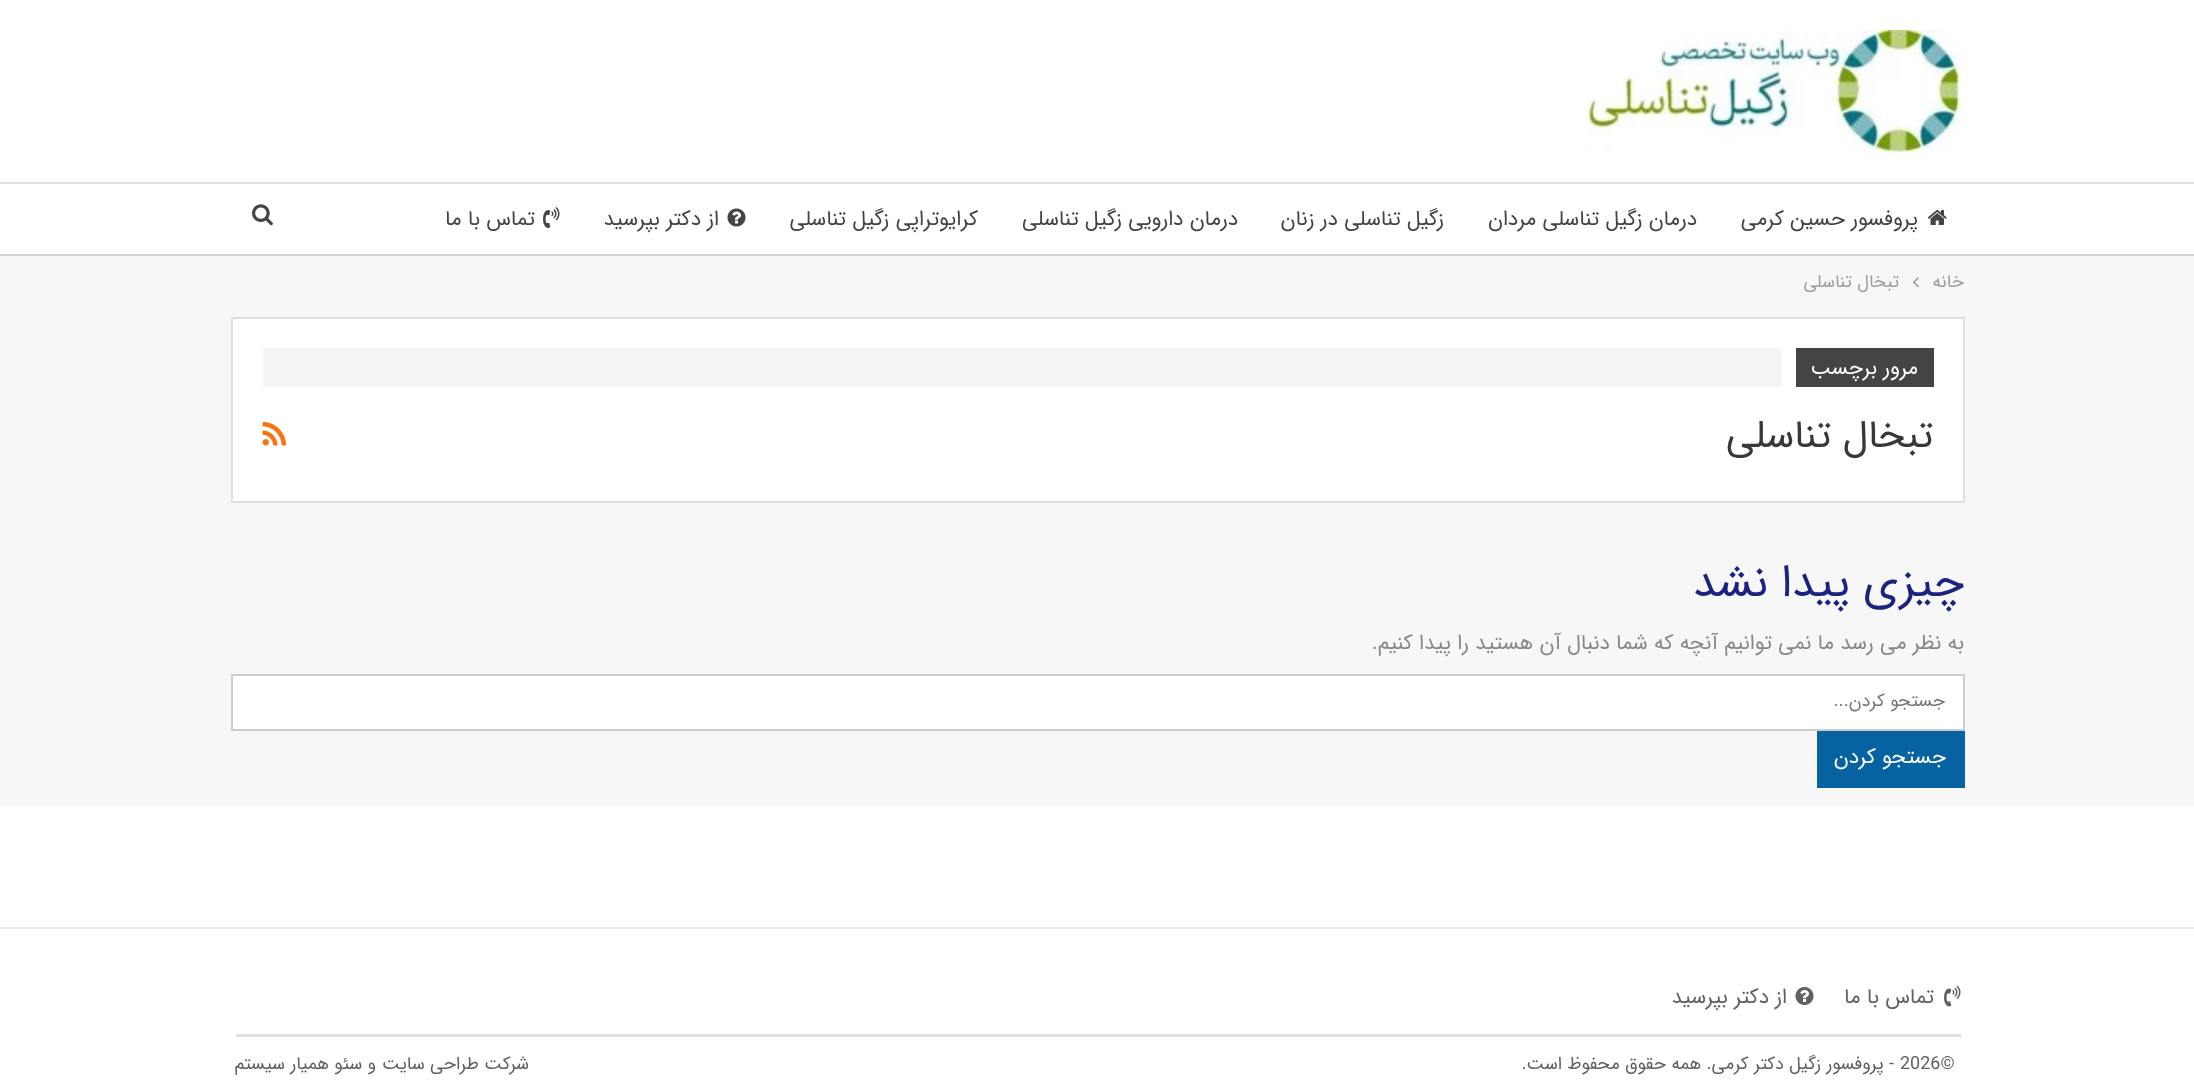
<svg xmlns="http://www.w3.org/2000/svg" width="2194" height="1086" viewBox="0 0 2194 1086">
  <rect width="100%" height="100%" fill="#f7f7f7"/>
  <path d="M0 0h2194v254H0z" fill="#fff"/>
  <image x="1587" y="30" width="374" height="122" href="img/1.png"/>
  <path d="M0 182h2194v2H0z" fill="#dedede"/>
  <path d="M0 254h2194v2H0z" fill="#d6d6d6"/>
  <image x="1927" y="210" width="20" height="15" href="img/2.png"/>
  <image x="727" y="208" width="19" height="19" href="img/3.png"/>
  <image x="543" y="207" width="17" height="21" href="img/4.png"/>
  <image x="252" y="204" width="21" height="22" href="img/5.png"/>
  <image x="1913" y="277" width="6" height="11" href="img/6.png"/>
  <path d="M232 318h1732v184H232z" fill="#fff" stroke="#e0e0e0" stroke-width="2"/>
  <path d="M1796 348h138v39H1796z" fill="#444"/>
  <path d="M263 348h1518v39H263z" fill="#f5f5f5"/>
  <image x="262" y="421" width="25" height="25" href="img/7.png"/>
  <path d="M232 675h1732v55H232z" fill="#fff" stroke="#ccc" stroke-width="2"/>
  <path d="M1817 731h148v57H1817z" fill="#0762a2"/>
  <path d="M0 806h2194v280H0z" fill="#fff"/>
  <path d="M0 927h2194v2H0z" fill="#e8e8e8"/>
  <path d="M236 1034h1725v3H236z" fill="#e0e0e0"/>
  <image x="1944" y="985" width="17" height="22" href="img/8.png"/>
  <image x="1795" y="987" width="19" height="18" href="img/9.png"/>
  <g font-family="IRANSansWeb" font-size="21" direction="rtl" fill="#444">
    <text x="1918" y="225">پروفسور حسین کرمی</text>
    <text x="1697" y="225">درمان زگیل تناسلی مردان</text>
    <text x="1444" y="225">زگیل تناسلی در زنان</text>
    <text x="1238" y="225">درمان دارویی زگیل تناسلی</text>
    <text x="978" y="225">کرایوتراپی زگیل تناسلی</text>
    <text x="719" y="225">از دکتر بپرسید</text>
    <text x="535" y="225">تماس با ما</text>
  </g>
  <g font-family="IRANSansWeb" font-size="18" direction="rtl" fill="#9e9e9e">
    <text x="1964" y="287">خانه</text>
    <text x="1899" y="287">تبخال تناسلی</text>
  </g>
  <text x="1918" y="374" font-family="IRANSansWeb" font-size="21" direction="rtl" fill="#fff">مرور برچسب</text>
  <text x="1933" y="447" font-family="IRANSansWeb" font-size="39" direction="rtl" fill="#383838">تبخال تناسلی</text>
  <text x="1964" y="596" font-family="IRANSansWeb" font-size="45" direction="rtl" fill="#1a237e">چیزی پیدا نشد</text>
  <text x="1964" y="649" font-family="IRANSansWeb" font-size="21" direction="rtl" fill="#888">به نظر می رسد ما نمی توانیم آنچه که شما دنبال آن هستید را پیدا کنیم.</text>
  <text x="1945" y="706" font-family="IRANSansWeb" font-size="18" direction="rtl" fill="#757575">جستجو کردن...</text>
  <text x="1946" y="763" font-family="IRANSansWeb" font-size="21" direction="rtl" fill="#fff">جستجو کردن</text>
  <g font-family="IRANSansWeb" font-size="21" direction="rtl" fill="#616161">
    <text x="1934" y="1003">تماس با ما</text>
    <text x="1787" y="1003">از دکتر بپرسید</text>
  </g>
  <text x="1900" y="1069" font-family="IRANSansWeb" font-size="18" fill="#616161">2026©</text>
  <g font-family="IRANSansWeb" font-size="18" direction="rtl" fill="#616161">
    <text x="1894" y="1069">- پروفسور زگیل دکتر کرمی. همه حقوق محفوظ است.</text>
    <text x="529" y="1069">شرکت طراحی سایت</text>
    <text x="376" y="1069">و سئو همیار سیستم</text>
  </g>
</svg>
